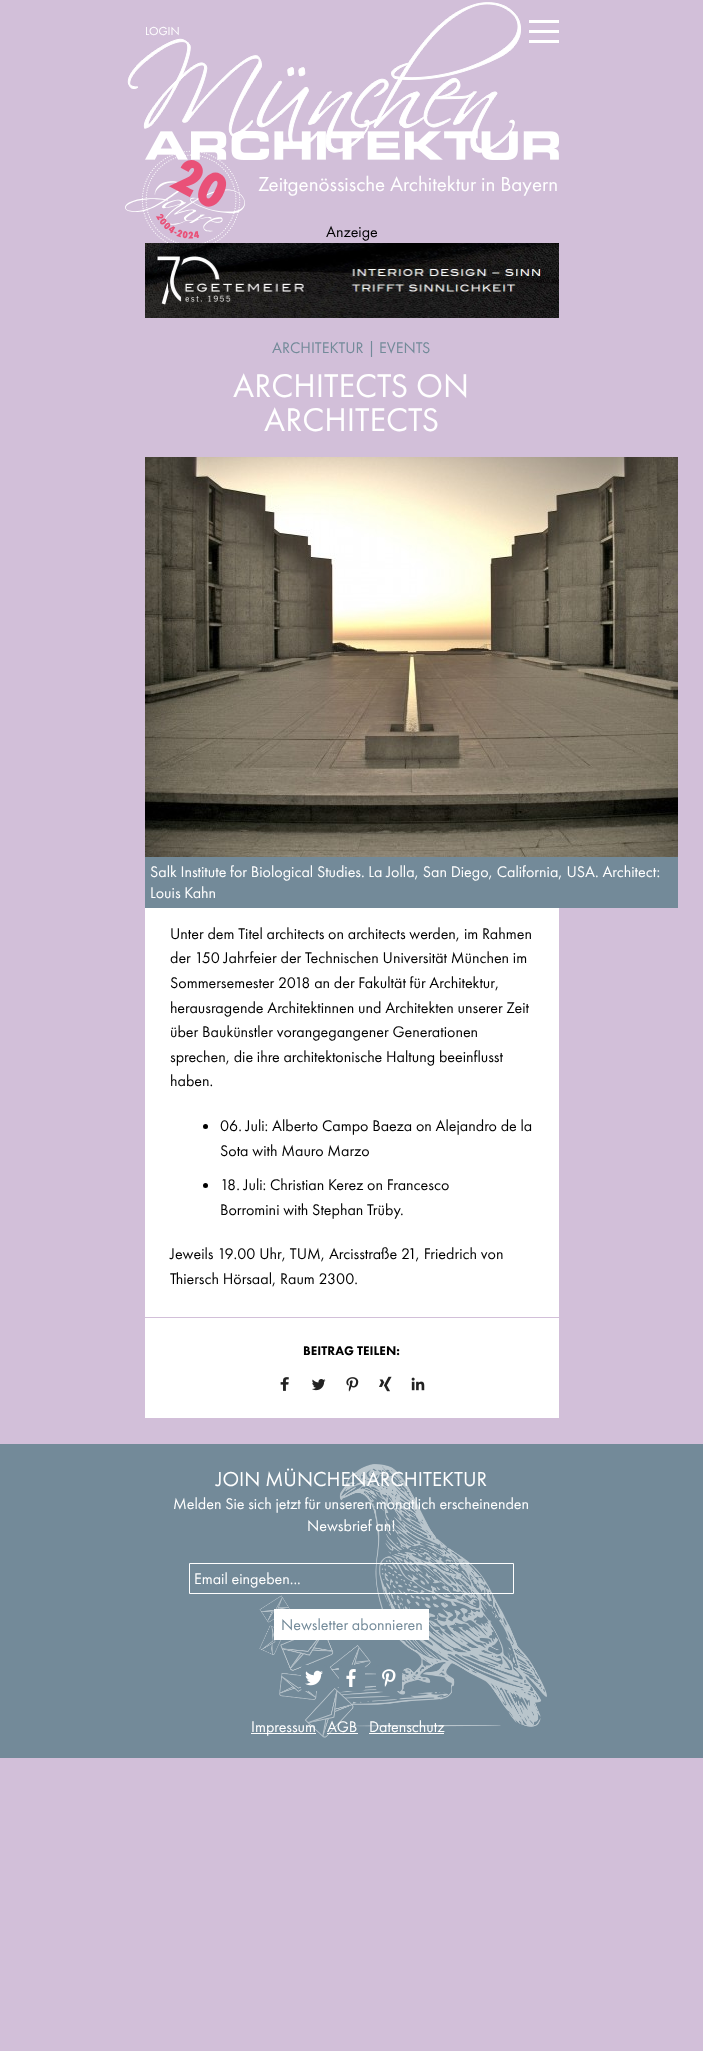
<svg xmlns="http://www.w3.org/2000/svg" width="703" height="2051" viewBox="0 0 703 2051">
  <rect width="100%" height="100%" fill="#d2bfd9"/>
  <image x="127" y="2" width="432" height="158" href="img/1.png"/>
  <path d="M529 20h30v3H529z" fill="#fff"/>
  <path d="M529 30h30v3H529z" fill="#fff"/>
  <path d="M529 40h30v3H529z" fill="#fff"/>
  <image x="125" y="150" width="120" height="93" href="img/2.png"/>
  <image x="145" y="243" width="414" height="75" href="img/3.png"/>
  <image x="145" y="457" width="533" height="400" href="img/4.png"/>
  <path d="M145 857h533v51H145z" fill="#738a99"/>
  <path d="M145 908h414v409H145z" fill="#fff"/>
  <circle cx="205.5" cy="1126.5" r="2.5" fill="#000"/>
  <circle cx="205.5" cy="1185.5" r="2.5" fill="#000"/>
  <path d="M145 1318h414v100H145z" fill="#fff"/>
  <image x="280" y="1377" width="9" height="14" href="img/5.png"/>
  <image x="312" y="1379" width="14" height="12" href="img/6.png"/>
  <image x="346" y="1377" width="13" height="15" href="img/7.png"/>
  <image x="379" y="1376" width="13" height="16" href="img/8.png"/>
  <image x="411" y="1377" width="14" height="14" href="img/9.png"/>
  <path d="M0 1444h703v314H0z" fill="#738a99"/>
  <image x="259" y="1464" width="288" height="274" href="img/10.png"/>
  <path d="M189.5 1563.5h324v30H189.5z" fill="none" stroke="#fff"/>
  <path d="M274 1609h155v31H274z" fill="#fff"/>
  <rect x="301" y="1665" width="26" height="26" rx="3" fill="#738a99"/>
  <image x="305" y="1670" width="18" height="16" href="img/11.png"/>
  <rect x="339" y="1665" width="26" height="26" rx="3" fill="#738a99"/>
  <image x="346" y="1669" width="10" height="18" href="img/12.png"/>
  <rect x="376" y="1665" width="26" height="26" rx="3" fill="#738a99"/>
  <image x="382" y="1669" width="14" height="18" href="img/13.png"/>
  <path d="M251 1733h65v1H251z" fill="#fff"/>
  <path d="M327 1733h31v1H327z" fill="#fff"/>
  <path d="M369 1733h75v1H369z" fill="#fff"/>
  <text x="145" y="35" font-family="Futura PT" font-size="12" fill="#fff">LOGIN</text>
  <text x="258" y="191" font-family="Futura PT" font-size="21" fill="#fff">Zeitgenössische Architektur in Bayern</text>
  <text x="326" y="237" font-family="Futura PT" font-size="16" fill="#000">Anzeige</text>
  <text x="272" y="353" font-family="Futura PT" font-size="16" fill="#738a99">ARCHITEKTUR | EVENTS</text>
  <g font-family="Futura PT" font-size="34" fill="#fff">
    <text x="233" y="397">ARCHITECTS ON</text>
    <text x="264" y="431">ARCHITECTS</text>
  </g>
  <g font-family="Futura PT" font-size="16" fill="#fff">
    <text x="150" y="877">Salk Institute for Biological Studies. La Jolla, San Diego, California, USA. Architect:</text>
    <text x="150" y="898">Louis Kahn</text>
  </g>
  <g font-family="Futura PT" font-size="16" fill="#000">
    <text x="170" y="939">Unter dem Titel architects on architects werden, im Rahmen</text>
    <text x="170" y="963">der 150 Jahrfeier der Technischen Universität München im</text>
    <text x="170" y="988">Sommersemester 2018 an der Fakultät für Architektur,</text>
    <text x="170" y="1013">herausragende Architektinnen und Architekten unserer Zeit</text>
    <text x="170" y="1037">über Baukünstler vorangegangener Generationen</text>
    <text x="170" y="1062">sprechen, die ihre architektonische Haltung beeinflusst</text>
    <text x="170" y="1086">haben.</text>
    <text x="220" y="1131">06. Juli: Alberto Campo Baeza on Alejandro de la</text>
    <text x="220" y="1156">Sota with Mauro Marzo</text>
    <text x="220" y="1190">18. Juli: Christian Kerez on Francesco</text>
    <text x="220" y="1215">Borromini with Stephan Trüby.</text>
    <text x="170" y="1259">Jeweils 19.00 Uhr, TUM, Arcisstraße 21, Friedrich von</text>
    <text x="170" y="1284">Thiersch Hörsaal, Raum 2300.</text>
  </g>
  <text x="303" y="1355" font-family="Futura PT" font-size="13" font-weight="900" fill="#000">BEITRAG TEILEN:</text>
  <text x="216" y="1486" font-family="Futura PT" font-size="21" fill="#fff">JOIN MÜNCHENARCHITEKTUR</text>
  <g font-family="Futura PT" font-size="16" fill="#fff">
    <text x="173" y="1509">Melden Sie sich jetzt für unseren monatlich erscheinenden</text>
    <text x="307" y="1531">Newsbrief an!</text>
    <text x="194" y="1584">Email eingeben...</text>
  </g>
  <text x="281" y="1630" font-family="Futura PT" font-size="16" fill="#738a99">Newsletter abonnieren</text>
  <g font-family="Futura PT" font-size="16" fill="#fff">
    <text x="251" y="1732">Impressum</text>
    <text x="327" y="1732">AGB</text>
    <text x="369" y="1732">Datenschutz</text>
  </g>
</svg>
